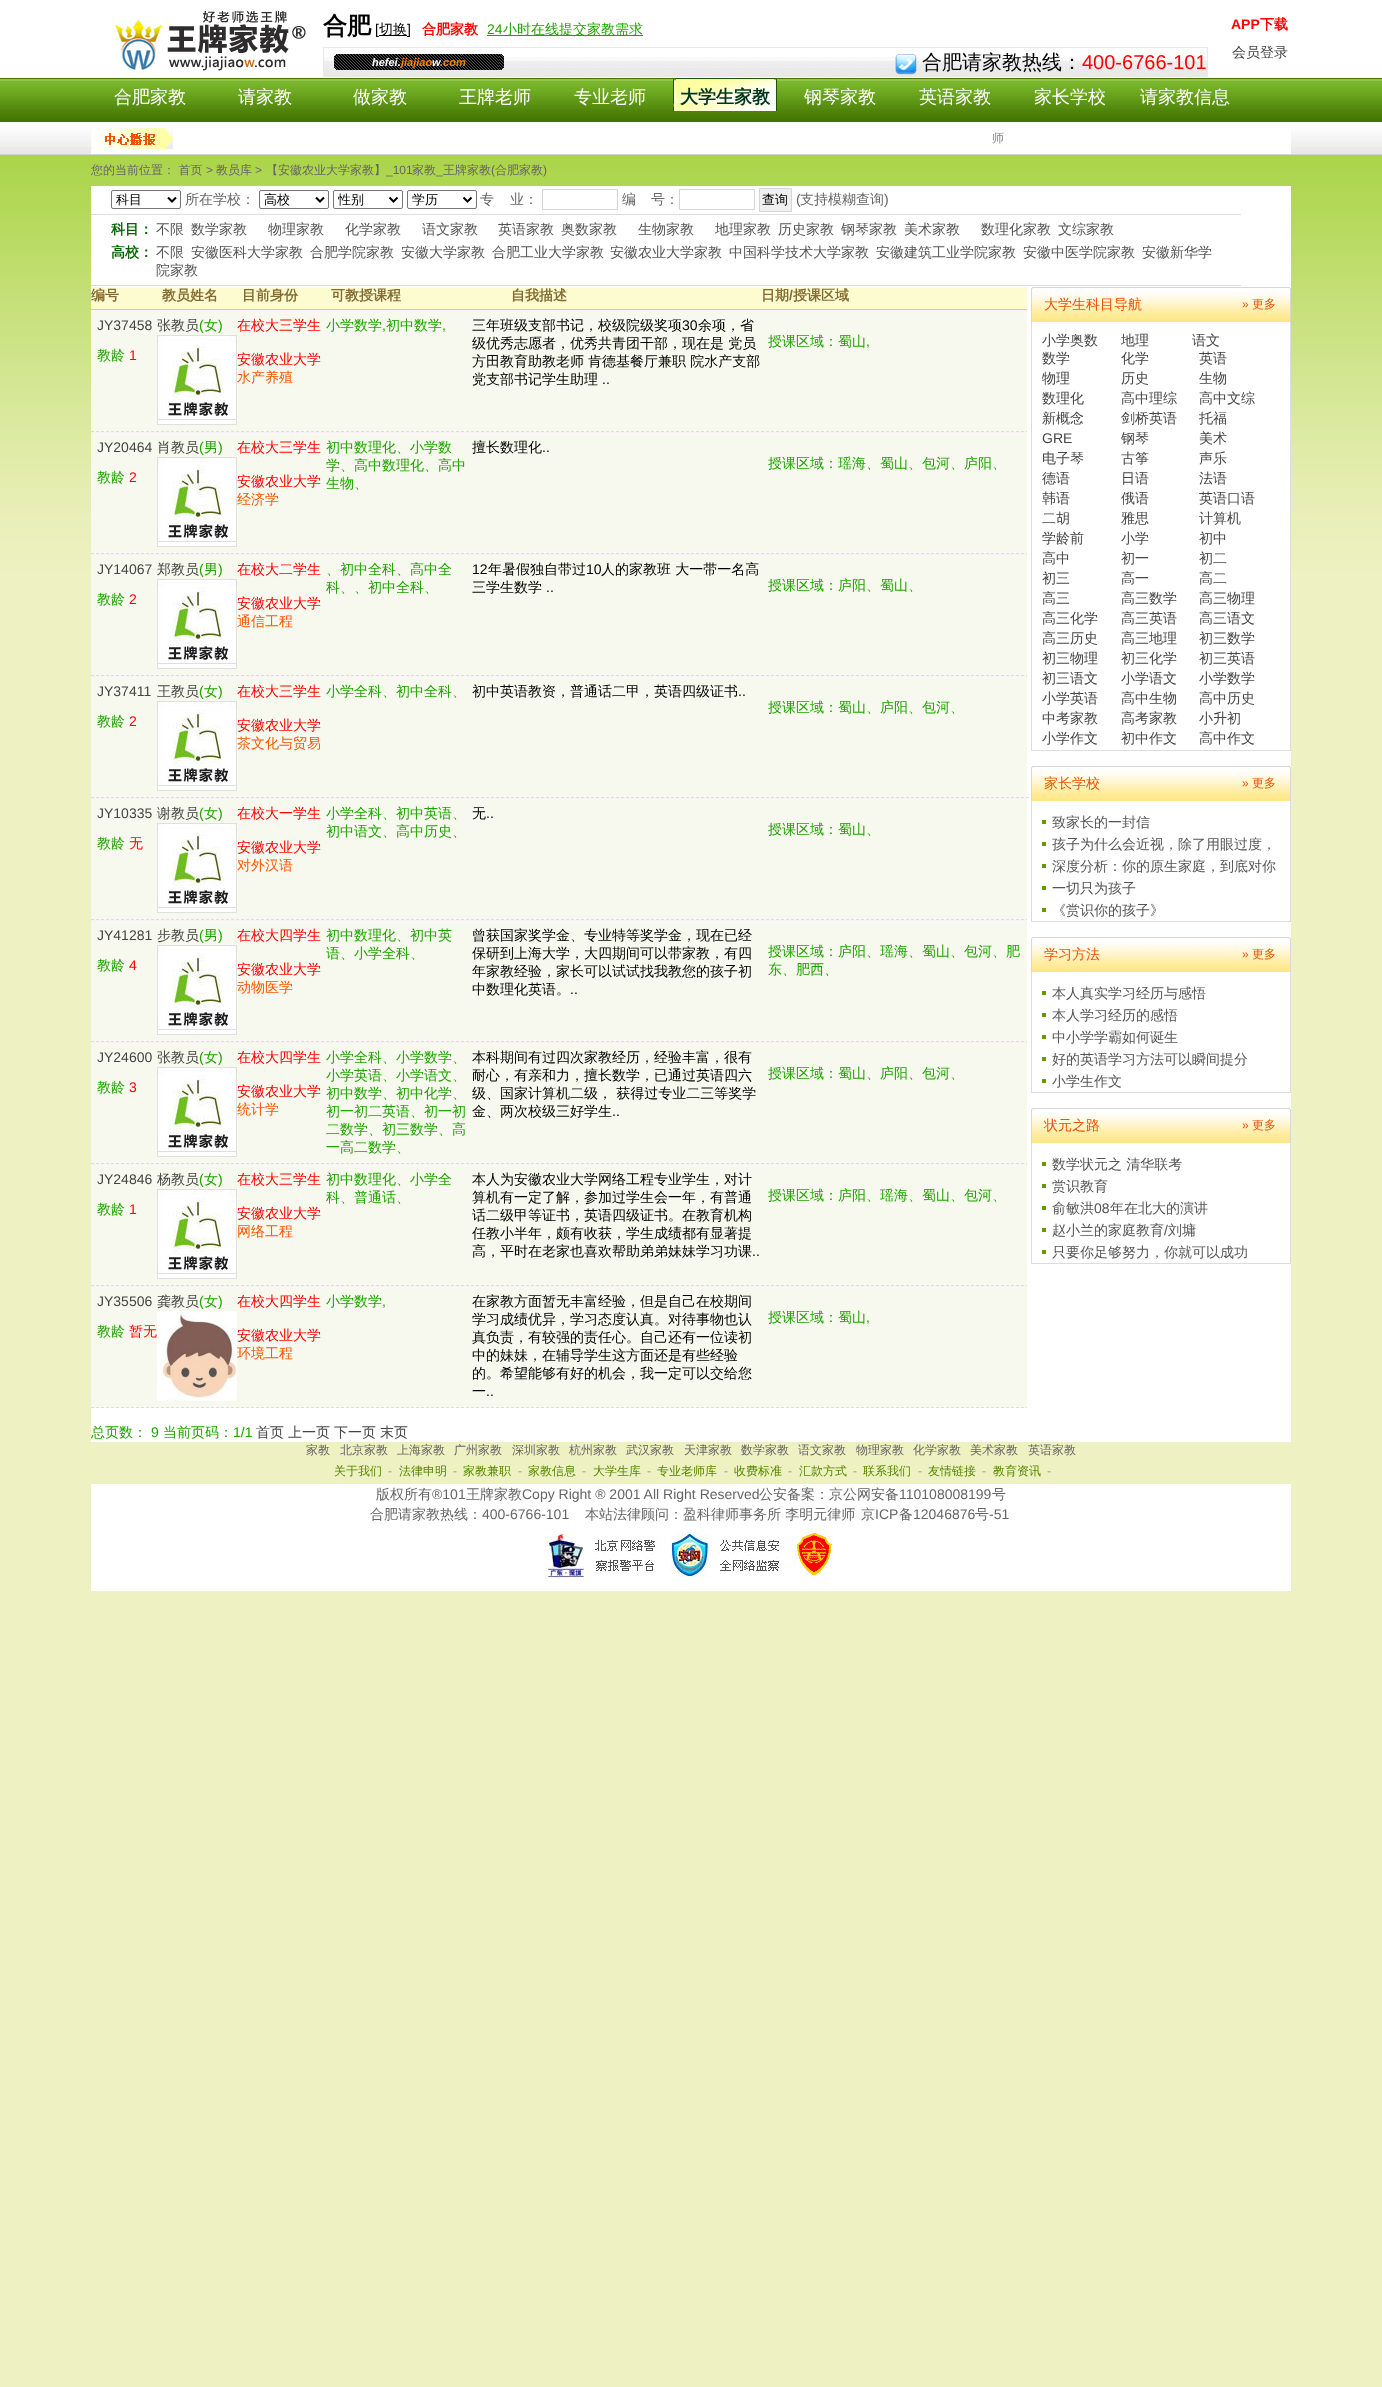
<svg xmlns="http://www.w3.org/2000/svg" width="1382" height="2387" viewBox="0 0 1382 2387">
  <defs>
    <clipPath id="clip1"><path d="M91 287h936v1155H91z"/></clipPath>
    <clipPath id="clip2"><path d="M338 191h48v17H338z"/></clipPath>
  </defs>
  <rect width="100%" height="100%" fill="#fff"/>
  <image x="0" y="155" width="1382" height="2232" href="img/1.png"/>
  <image x="115" y="11" width="191" height="60" href="img/2.png"/>
  <path d="M379 35h28v1H379z" fill="#000"/>
  <path d="M487 35h156v1H487z" fill="#1fa300"/>
  <image x="324" y="57" width="883" height="19" href="img/3.png"/>
  <path d="M323.5 47.5h884v29H323.5z" fill="none" stroke="#e8e8e8"/>
  <image x="334" y="54" width="170" height="16" href="img/4.png"/>
  <image x="895" y="54" width="22" height="21" href="img/5.png"/>
  <image x="0" y="78" width="1382" height="44" href="img/6.png"/>
  <image x="673" y="78" width="104" height="33" href="img/7.png"/>
  <image x="0" y="122" width="1382" height="32" href="img/8.png"/>
  <path d="M0 154h1382v1H0z" fill="#d2d2d2"/>
  <path d="M91 128h1200v26H91z" fill="#fff"/>
  <image x="91" y="128" width="82" height="21" href="img/9.png"/>
  <path d="M91 186h1200v1256H91z" fill="#fff"/>
  <rect x="111.5" y="190.5" width="69" height="18" rx="1.5" fill="none" stroke="#767676"/>
  <path d="M168 197.5L172 201.5L176 197.5" fill="none" stroke="#000" stroke-width="2"/>
  <rect x="259.5" y="190.5" width="69" height="18" rx="1.5" fill="none" stroke="#767676"/>
  <path d="M316 197.5L320 201.5L324 197.5" fill="none" stroke="#000" stroke-width="2"/>
  <rect x="333.5" y="190.5" width="69" height="18" rx="1.5" fill="none" stroke="#767676"/>
  <path d="M389.5 197.5L393.5 201.5L397.5 197.5" fill="none" stroke="#000" stroke-width="2"/>
  <rect x="407.5" y="190.5" width="69" height="18" rx="1.5" fill="none" stroke="#767676"/>
  <path d="M463.5 197.5L467.5 201.5L471.5 197.5" fill="none" stroke="#000" stroke-width="2"/>
  <path d="M542.5 189.5h75v20H542.5z" fill="none" stroke="#d5d5d5"/>
  <path d="M679.5 189.5h75v20H679.5z" fill="none" stroke="#d5d5d5"/>
  <path d="M759.5 188.5h32v23H759.5z" fill="#efefef" stroke="#d5d5d5"/>
  <path d="M91 214h1150v1H91z" fill="#ddd"/>
  <path d="M91 285h1150v1H91z" fill="#ddd"/>
  <path d="M91 287h936v22H91z" fill="#fdfcd0"/>
  <path d="M91 309h936v1H91z" fill="#d5cea4"/>
  <path d="M91 311h936v121H91z" fill="#f7f9ee"/>
  <path d="M91 310h936v1H91z" fill="#faeffc"/>
  <g clip-path="url(#clip1)">
    <path d="M91 431.5H1039" fill="none" stroke="#ddd" stroke-dasharray="3 2"/>
  </g>
  <image x="157" y="335" width="80" height="90" href="img/10.png"/>
  <path d="M91 433h936v121H91z" fill="#f7f9ee"/>
  <path d="M91 432h936v1H91z" fill="#faeffc"/>
  <g clip-path="url(#clip1)">
    <path d="M91 553.5H1039" fill="none" stroke="#ddd" stroke-dasharray="3 2"/>
  </g>
  <image x="157" y="457" width="80" height="90" href="img/10.png"/>
  <path d="M91 555h936v121H91z" fill="#f7f9ee"/>
  <path d="M91 554h936v1H91z" fill="#faeffc"/>
  <g clip-path="url(#clip1)">
    <path d="M91 675.5H1039" fill="none" stroke="#ddd" stroke-dasharray="3 2"/>
  </g>
  <image x="157" y="579" width="80" height="90" href="img/10.png"/>
  <path d="M91 677h936v121H91z" fill="#f7f9ee"/>
  <path d="M91 676h936v1H91z" fill="#faeffc"/>
  <path d="M91 797.5H1039" fill="none" stroke="#ddd" stroke-dasharray="3 2"/>
  <image x="157" y="701" width="80" height="90" href="img/10.png"/>
  <path d="M91 799h936v121H91z" fill="#f7f9ee"/>
  <path d="M91 798h936v1H91z" fill="#faeffc"/>
  <g clip-path="url(#clip1)">
    <path d="M91 919.5H1039" fill="none" stroke="#ddd" stroke-dasharray="3 2"/>
  </g>
  <image x="157" y="823" width="80" height="90" href="img/10.png"/>
  <path d="M91 921h936v121H91z" fill="#f7f9ee"/>
  <path d="M91 920h936v1H91z" fill="#faeffc"/>
  <g clip-path="url(#clip1)">
    <path d="M91 1041.5H1039" fill="none" stroke="#ddd" stroke-dasharray="3 2"/>
  </g>
  <image x="157" y="945" width="80" height="90" href="img/10.png"/>
  <path d="M91 1043h936v121H91z" fill="#f7f9ee"/>
  <path d="M91 1042h936v1H91z" fill="#faeffc"/>
  <g clip-path="url(#clip1)">
    <path d="M91 1163.5H1039" fill="none" stroke="#ddd" stroke-dasharray="3 2"/>
  </g>
  <image x="157" y="1067" width="80" height="90" href="img/10.png"/>
  <path d="M91 1165h936v121H91z" fill="#f7f9ee"/>
  <path d="M91 1164h936v1H91z" fill="#faeffc"/>
  <g clip-path="url(#clip1)">
    <path d="M91 1285.5H1039" fill="none" stroke="#ddd" stroke-dasharray="3 2"/>
  </g>
  <image x="157" y="1189" width="80" height="90" href="img/10.png"/>
  <path d="M91 1287h936v121H91z" fill="#f7f9ee"/>
  <path d="M91 1286h936v1H91z" fill="#faeffc"/>
  <g clip-path="url(#clip1)">
    <path d="M91 1407.5H1039" fill="none" stroke="#ddd" stroke-dasharray="3 2"/>
  </g>
  <image x="157" y="1311" width="80" height="90" href="img/11.png"/>
  <image x="1033" y="287" width="255" height="35" href="img/12.png"/>
  <image x="1031" y="287" width="2" height="35" href="img/13.png"/>
  <image x="1288" y="287" width="3" height="35" href="img/14.png"/>
  <path d="M1290 322h1v429H1290z" fill="#ddd"/>
  <path d="M1031 750h260v1H1031z" fill="#ddd"/>
  <path d="M1031 322h1v429H1031z" fill="#ddd"/>
  <image x="1033" y="766" width="255" height="35" href="img/12.png"/>
  <image x="1031" y="766" width="2" height="35" href="img/13.png"/>
  <image x="1288" y="766" width="3" height="35" href="img/14.png"/>
  <path d="M1290 801h1v121H1290z" fill="#ddd"/>
  <path d="M1031 921h260v1H1031z" fill="#ddd"/>
  <path d="M1031 801h1v121H1031z" fill="#ddd"/>
  <path d="M1042 820h4v4H1042z" fill="#629b00"/>
  <path d="M1042 842h4v4H1042z" fill="#629b00"/>
  <path d="M1042 864h4v4H1042z" fill="#629b00"/>
  <path d="M1042 886h4v4H1042z" fill="#629b00"/>
  <path d="M1042 908h4v4H1042z" fill="#629b00"/>
  <image x="1033" y="937" width="255" height="35" href="img/12.png"/>
  <image x="1031" y="937" width="2" height="35" href="img/13.png"/>
  <image x="1288" y="937" width="3" height="35" href="img/14.png"/>
  <path d="M1290 972h1v121H1290z" fill="#ddd"/>
  <path d="M1031 1092h260v1H1031z" fill="#ddd"/>
  <path d="M1031 972h1v121H1031z" fill="#ddd"/>
  <path d="M1042 991h4v4H1042z" fill="#629b00"/>
  <path d="M1042 1013h4v4H1042z" fill="#629b00"/>
  <path d="M1042 1035h4v4H1042z" fill="#629b00"/>
  <path d="M1042 1057h4v4H1042z" fill="#629b00"/>
  <path d="M1042 1079h4v4H1042z" fill="#629b00"/>
  <image x="1033" y="1108" width="255" height="35" href="img/12.png"/>
  <image x="1031" y="1108" width="2" height="35" href="img/13.png"/>
  <image x="1288" y="1108" width="3" height="35" href="img/14.png"/>
  <path d="M1290 1143h1v121H1290z" fill="#ddd"/>
  <path d="M1031 1263h260v1H1031z" fill="#ddd"/>
  <path d="M1031 1143h1v121H1031z" fill="#ddd"/>
  <path d="M1042 1162h4v4H1042z" fill="#629b00"/>
  <path d="M1042 1184h4v4H1042z" fill="#629b00"/>
  <path d="M1042 1206h4v4H1042z" fill="#629b00"/>
  <path d="M1042 1228h4v4H1042z" fill="#629b00"/>
  <path d="M1042 1250h4v4H1042z" fill="#629b00"/>
  <path d="M91 1484h1200v107H91z" fill="#fff"/>
  <image x="545" y="1531" width="111" height="50" href="img/15.png"/>
  <image x="669" y="1531" width="113" height="49" href="img/16.png"/>
  <image x="796" y="1528" width="40" height="48" href="img/17.png"/>
  <text x="323" y="34" font-family="WenQuanYi Zen Hei" font-size="24" font-weight="bold" fill="#000">合肥</text>
  <text x="375" y="34" font-family="Liberation Sans" font-size="14" fill="#000">[</text>
  <text x="379" y="34" font-family="WenQuanYi Zen Hei" font-size="14" font-weight="500" fill="#000">切换</text>
  <text x="407" y="34" font-family="Liberation Sans" font-size="14" fill="#000">]</text>
  <text x="422" y="34" font-family="WenQuanYi Zen Hei" font-size="14" font-weight="bold" fill="#f00">合肥家教</text>
  <text x="487" y="34" font-family="Liberation Sans" font-size="14" fill="#1fa300">24</text>
  <text x="503" y="34" font-family="WenQuanYi Zen Hei" font-size="14" font-weight="500" fill="#1fa300">小时在线提交家教需求</text>
  <text x="372" y="66" font-family="Liberation Sans" font-size="11" font-weight="bold" font-style="italic" fill="#fff">hefei.</text>
  <text x="401" y="66" font-family="Liberation Sans" font-size="11" font-weight="bold" font-style="italic" fill="#ff8400">jiajiao</text>
  <text x="432" y="66" font-family="Liberation Sans" font-size="11" font-weight="bold" font-style="italic" fill="#fff">w</text>
  <text x="440" y="66" font-family="Liberation Sans" font-size="11" font-weight="bold" font-style="italic" fill="#ff8400">.com</text>
  <text x="922" y="69" font-family="WenQuanYi Zen Hei" font-size="20" font-weight="500" fill="#000">合肥请家教热线：</text>
  <text x="1082" y="69" font-family="Liberation Sans" font-size="20" fill="#f00">400-6766-101</text>
  <text x="1231" y="29" font-family="Liberation Sans" font-size="14" font-weight="bold" fill="#f00">APP</text>
  <text x="1260" y="29" font-family="WenQuanYi Zen Hei" font-size="14" font-weight="bold" fill="#f00">下载</text>
  <text x="1232" y="57" font-family="WenQuanYi Zen Hei" font-size="14" font-weight="500" fill="#454545">会员登录</text>
  <g font-family="WenQuanYi Zen Hei" font-size="18" font-weight="500" fill="#fff">
    <text x="114" y="103">合肥家教</text>
    <text x="238" y="103">请家教</text>
    <text x="353" y="103">做家教</text>
    <text x="459" y="103">王牌老师</text>
    <text x="574" y="103">专业老师</text>
  </g>
  <text x="680" y="103" font-family="WenQuanYi Zen Hei" font-size="18" font-weight="bold" fill="#003619">大学生家教</text>
  <g font-family="WenQuanYi Zen Hei" font-size="18" font-weight="500" fill="#fff">
    <text x="804" y="103">钢琴家教</text>
    <text x="919" y="103">英语家教</text>
    <text x="1034" y="103">家长学校</text>
    <text x="1140" y="103">请家教信息</text>
  </g>
  <text x="992" y="142" font-family="WenQuanYi Zen Hei" font-size="12" font-weight="500" fill="#888">师</text>
  <text x="91" y="174" font-family="WenQuanYi Zen Hei" font-size="12" font-weight="500" fill="#666">您的当前位置： 首页</text>
  <text x="206" y="174" font-family="Liberation Sans" font-size="12" fill="#666">&gt;</text>
  <text x="216" y="174" font-family="WenQuanYi Zen Hei" font-size="12" font-weight="500" fill="#666">教员库</text>
  <text x="255" y="174" font-family="Liberation Sans" font-size="12" fill="#666">&gt;</text>
  <text x="266" y="174" font-family="WenQuanYi Zen Hei" font-size="12" font-weight="500" fill="#666">【安徽农业大学家教】</text>
  <text x="386" y="174" font-family="Liberation Sans" font-size="12" fill="#666">_101</text>
  <text x="412" y="174" font-family="WenQuanYi Zen Hei" font-size="12" font-weight="500" fill="#666">家教</text>
  <text x="491" y="174" font-family="Liberation Sans" font-size="12" fill="#666">(</text>
  <text x="495" y="174" font-family="WenQuanYi Zen Hei" font-size="12" font-weight="500" fill="#666">合肥家教</text>
  <g font-family="Liberation Sans" font-size="12" fill="#666">
    <text x="543" y="174">)</text>
    <text x="436" y="174">_</text>
  </g>
  <text x="443" y="174" font-family="WenQuanYi Zen Hei" font-size="12" font-weight="500" fill="#666">王牌家教</text>
  <text x="116" y="204" font-family="WenQuanYi Zen Hei" font-size="13" font-weight="500" fill="#000">科目</text>
  <text x="185" y="204" font-family="WenQuanYi Zen Hei" font-size="14" font-weight="500" fill="#666">所在学校：</text>
  <text x="264" y="204" font-family="WenQuanYi Zen Hei" font-size="13" font-weight="500" fill="#000">高校</text>
  <g clip-path="url(#clip2)">
    <text x="338" y="204" font-family="WenQuanYi Zen Hei" font-size="13" font-weight="500" fill="#000">性别</text>
  </g>
  <text x="412" y="204" font-family="WenQuanYi Zen Hei" font-size="13" font-weight="500" fill="#000">学历</text>
  <g font-family="WenQuanYi Zen Hei" font-size="14" font-weight="500" fill="#666">
    <text x="480" y="204">专</text>
    <text x="510" y="204">业：</text>
    <text x="622" y="204">编</text>
    <text x="651" y="204">号：</text>
  </g>
  <text x="762" y="204" font-family="WenQuanYi Zen Hei" font-size="13" font-weight="500" fill="#000">查询</text>
  <text x="796" y="204" font-family="Liberation Sans" font-size="14" fill="#666">(</text>
  <text x="800" y="204" font-family="WenQuanYi Zen Hei" font-size="14" font-weight="500" fill="#666">支持模糊查询</text>
  <text x="884" y="204" font-family="Liberation Sans" font-size="14" fill="#666">)</text>
  <text x="111" y="234" font-family="WenQuanYi Zen Hei" font-size="14" font-weight="bold" fill="#056500">科目：</text>
  <g font-family="WenQuanYi Zen Hei" font-size="14" font-weight="500" fill="#555">
    <text x="156" y="234">不限</text>
    <text x="191" y="234">数学家教</text>
    <text x="268" y="234">物理家教</text>
    <text x="345" y="234">化学家教</text>
    <text x="422" y="234">语文家教</text>
    <text x="498" y="234">英语家教</text>
    <text x="561" y="234">奥数家教</text>
    <text x="638" y="234">生物家教</text>
    <text x="715" y="234">地理家教</text>
    <text x="778" y="234">历史家教</text>
    <text x="841" y="234">钢琴家教</text>
    <text x="904" y="234">美术家教</text>
    <text x="981" y="234">数理化家教</text>
    <text x="1058" y="234">文综家教</text>
  </g>
  <text x="111" y="257" font-family="WenQuanYi Zen Hei" font-size="14" font-weight="bold" fill="#056500">高校：</text>
  <g font-family="WenQuanYi Zen Hei" font-size="14" font-weight="500" fill="#555">
    <text x="156" y="257">不限</text>
    <text x="191" y="257">安徽医科大学家教</text>
    <text x="310" y="257">合肥学院家教</text>
    <text x="401" y="257">安徽大学家教</text>
    <text x="492" y="257">合肥工业大学家教</text>
    <text x="610" y="257">安徽农业大学家教</text>
    <text x="729" y="257">中国科学技术大学家教</text>
    <text x="876" y="257">安徽建筑工业学院家教</text>
    <text x="1023" y="257">安徽中医学院家教</text>
    <text x="1142" y="257">安徽新华学</text>
    <text x="156" y="275">院家教</text>
  </g>
  <g font-family="WenQuanYi Zen Hei" font-size="14" font-weight="bold" fill="#856b31">
    <text x="91" y="300">编号</text>
    <text x="162" y="300">教员姓名</text>
    <text x="242" y="300">目前身份</text>
    <text x="331" y="300">可教授课程</text>
    <text x="511" y="300">自我描述</text>
    <text x="761" y="300">日期</text>
  </g>
  <text x="789" y="300" font-family="Liberation Sans" font-size="14" font-weight="bold" fill="#856b31">/</text>
  <text x="793" y="300" font-family="WenQuanYi Zen Hei" font-size="14" font-weight="bold" fill="#856b31">授课区域</text>
  <text x="97" y="330" font-family="Liberation Sans" font-size="14" fill="#454545">JY37458</text>
  <text x="97" y="360" font-family="WenQuanYi Zen Hei" font-size="14" font-weight="500" fill="#1fa300">教龄</text>
  <text x="129" y="360" font-family="Liberation Sans" font-size="14" fill="#f00">1</text>
  <text x="157" y="330" font-family="WenQuanYi Zen Hei" font-size="14" font-weight="500" fill="#454545">张教员</text>
  <text x="199" y="330" font-family="Liberation Sans" font-size="14" fill="#1fa300">(</text>
  <text x="204" y="330" font-family="WenQuanYi Zen Hei" font-size="14" font-weight="500" fill="#1fa300">女</text>
  <text x="218" y="330" font-family="Liberation Sans" font-size="14" fill="#1fa300">)</text>
  <g font-family="WenQuanYi Zen Hei" font-size="14" font-weight="500" fill="#f00">
    <text x="237" y="330">在校大三学生</text>
    <text x="237" y="364">安徽农业大学</text>
  </g>
  <text x="237" y="382" font-family="WenQuanYi Zen Hei" font-size="14" font-weight="500" fill="#f50">水产养殖</text>
  <text x="326" y="330" font-family="WenQuanYi Zen Hei" font-size="14" font-weight="500" fill="#1fa300">小学数学</text>
  <text x="382" y="330" font-family="Liberation Sans" font-size="14" fill="#1fa300">,</text>
  <text x="386" y="330" font-family="WenQuanYi Zen Hei" font-size="14" font-weight="500" fill="#1fa300">初中数学</text>
  <text x="442" y="330" font-family="Liberation Sans" font-size="14" fill="#1fa300">,</text>
  <text x="472" y="330" font-family="WenQuanYi Zen Hei" font-size="14" font-weight="500" fill="#000">三年班级支部书记，校级院级奖项</text>
  <text x="682" y="330" font-family="Liberation Sans" font-size="14" fill="#000">30</text>
  <g font-family="WenQuanYi Zen Hei" font-size="14" font-weight="500" fill="#000">
    <text x="698" y="330">余项，省</text>
    <text x="472" y="348">级优秀志愿者，优秀共青团干部，现在是 党员</text>
    <text x="472" y="366">方田教育助教老师</text>
    <text x="588" y="366">肯德基餐厅兼职 院水产支部</text>
    <text x="472" y="384">党支部书记学生助理</text>
  </g>
  <text x="602" y="384" font-family="Liberation Sans" font-size="14" fill="#000">..</text>
  <text x="768" y="346" font-family="WenQuanYi Zen Hei" font-size="14" font-weight="500" fill="#1fa300">授课区域：蜀山</text>
  <text x="866" y="346" font-family="Liberation Sans" font-size="14" fill="#1fa300">,</text>
  <text x="97" y="452" font-family="Liberation Sans" font-size="14" fill="#454545">JY20464</text>
  <text x="97" y="482" font-family="WenQuanYi Zen Hei" font-size="14" font-weight="500" fill="#1fa300">教龄</text>
  <text x="129" y="482" font-family="Liberation Sans" font-size="14" fill="#f00">2</text>
  <text x="157" y="452" font-family="WenQuanYi Zen Hei" font-size="14" font-weight="500" fill="#454545">肖教员</text>
  <text x="199" y="452" font-family="Liberation Sans" font-size="14" fill="#1fa300">(</text>
  <text x="204" y="452" font-family="WenQuanYi Zen Hei" font-size="14" font-weight="500" fill="#1fa300">男</text>
  <text x="218" y="452" font-family="Liberation Sans" font-size="14" fill="#1fa300">)</text>
  <g font-family="WenQuanYi Zen Hei" font-size="14" font-weight="500" fill="#f00">
    <text x="237" y="452">在校大三学生</text>
    <text x="237" y="486">安徽农业大学</text>
  </g>
  <text x="237" y="504" font-family="WenQuanYi Zen Hei" font-size="14" font-weight="500" fill="#f50">经济学</text>
  <g font-family="WenQuanYi Zen Hei" font-size="14" font-weight="500" fill="#1fa300">
    <text x="326" y="452">初中数理化、小学数</text>
    <text x="326" y="470">学、高中数理化、高中</text>
    <text x="326" y="488">生物、</text>
  </g>
  <text x="472" y="452" font-family="WenQuanYi Zen Hei" font-size="14" font-weight="500" fill="#000">擅长数理化</text>
  <text x="542" y="452" font-family="Liberation Sans" font-size="14" fill="#000">..</text>
  <text x="768" y="468" font-family="WenQuanYi Zen Hei" font-size="14" font-weight="500" fill="#1fa300">授课区域：瑶海、蜀山、包河、庐阳、</text>
  <text x="97" y="574" font-family="Liberation Sans" font-size="14" fill="#454545">JY14067</text>
  <text x="97" y="604" font-family="WenQuanYi Zen Hei" font-size="14" font-weight="500" fill="#1fa300">教龄</text>
  <text x="129" y="604" font-family="Liberation Sans" font-size="14" fill="#f00">2</text>
  <text x="157" y="574" font-family="WenQuanYi Zen Hei" font-size="14" font-weight="500" fill="#454545">郑教员</text>
  <text x="199" y="574" font-family="Liberation Sans" font-size="14" fill="#1fa300">(</text>
  <text x="204" y="574" font-family="WenQuanYi Zen Hei" font-size="14" font-weight="500" fill="#1fa300">男</text>
  <text x="218" y="574" font-family="Liberation Sans" font-size="14" fill="#1fa300">)</text>
  <g font-family="WenQuanYi Zen Hei" font-size="14" font-weight="500" fill="#f00">
    <text x="237" y="574">在校大二学生</text>
    <text x="237" y="608">安徽农业大学</text>
  </g>
  <text x="237" y="626" font-family="WenQuanYi Zen Hei" font-size="14" font-weight="500" fill="#f50">通信工程</text>
  <g font-family="WenQuanYi Zen Hei" font-size="14" font-weight="500" fill="#1fa300">
    <text x="326" y="574">、初中全科、高中全</text>
    <text x="326" y="592">科、、初中全科、</text>
  </g>
  <text x="472" y="574" font-family="Liberation Sans" font-size="14" fill="#000">12</text>
  <text x="488" y="574" font-family="WenQuanYi Zen Hei" font-size="14" font-weight="500" fill="#000">年暑假独自带过</text>
  <text x="586" y="574" font-family="Liberation Sans" font-size="14" fill="#000">10</text>
  <g font-family="WenQuanYi Zen Hei" font-size="14" font-weight="500" fill="#000">
    <text x="601" y="574">人的家教班 大一带一名高</text>
    <text x="472" y="592">三学生数学</text>
  </g>
  <text x="546" y="592" font-family="Liberation Sans" font-size="14" fill="#000">..</text>
  <text x="768" y="590" font-family="WenQuanYi Zen Hei" font-size="14" font-weight="500" fill="#1fa300">授课区域：庐阳、蜀山、</text>
  <text x="97" y="696" font-family="Liberation Sans" font-size="14" fill="#454545">JY37411</text>
  <text x="97" y="726" font-family="WenQuanYi Zen Hei" font-size="14" font-weight="500" fill="#1fa300">教龄</text>
  <text x="129" y="726" font-family="Liberation Sans" font-size="14" fill="#f00">2</text>
  <text x="157" y="696" font-family="WenQuanYi Zen Hei" font-size="14" font-weight="500" fill="#454545">王教员</text>
  <text x="199" y="696" font-family="Liberation Sans" font-size="14" fill="#1fa300">(</text>
  <text x="204" y="696" font-family="WenQuanYi Zen Hei" font-size="14" font-weight="500" fill="#1fa300">女</text>
  <text x="218" y="696" font-family="Liberation Sans" font-size="14" fill="#1fa300">)</text>
  <g font-family="WenQuanYi Zen Hei" font-size="14" font-weight="500" fill="#f00">
    <text x="237" y="696">在校大三学生</text>
    <text x="237" y="730">安徽农业大学</text>
  </g>
  <text x="237" y="748" font-family="WenQuanYi Zen Hei" font-size="14" font-weight="500" fill="#f50">茶文化与贸易</text>
  <text x="326" y="696" font-family="WenQuanYi Zen Hei" font-size="14" font-weight="500" fill="#1fa300">小学全科、初中全科、</text>
  <text x="472" y="696" font-family="WenQuanYi Zen Hei" font-size="14" font-weight="500" fill="#000">初中英语教资，普通话二甲，英语四级证书</text>
  <text x="738" y="696" font-family="Liberation Sans" font-size="14" fill="#000">..</text>
  <text x="768" y="712" font-family="WenQuanYi Zen Hei" font-size="14" font-weight="500" fill="#1fa300">授课区域：蜀山、庐阳、包河、</text>
  <text x="97" y="818" font-family="Liberation Sans" font-size="14" fill="#454545">JY10335</text>
  <text x="97" y="848" font-family="WenQuanYi Zen Hei" font-size="14" font-weight="500" fill="#1fa300">教龄</text>
  <text x="129" y="848" font-family="WenQuanYi Zen Hei" font-size="14" font-weight="500" fill="#f00">无</text>
  <text x="157" y="818" font-family="WenQuanYi Zen Hei" font-size="14" font-weight="500" fill="#454545">谢教员</text>
  <text x="199" y="818" font-family="Liberation Sans" font-size="14" fill="#1fa300">(</text>
  <text x="204" y="818" font-family="WenQuanYi Zen Hei" font-size="14" font-weight="500" fill="#1fa300">女</text>
  <text x="218" y="818" font-family="Liberation Sans" font-size="14" fill="#1fa300">)</text>
  <g font-family="WenQuanYi Zen Hei" font-size="14" font-weight="500" fill="#f00">
    <text x="237" y="818">在校大一学生</text>
    <text x="237" y="852">安徽农业大学</text>
  </g>
  <text x="237" y="870" font-family="WenQuanYi Zen Hei" font-size="14" font-weight="500" fill="#f50">对外汉语</text>
  <g font-family="WenQuanYi Zen Hei" font-size="14" font-weight="500" fill="#1fa300">
    <text x="326" y="818">小学全科、初中英语、</text>
    <text x="326" y="836">初中语文、高中历史、</text>
  </g>
  <text x="472" y="818" font-family="WenQuanYi Zen Hei" font-size="14" font-weight="500" fill="#000">无</text>
  <text x="486" y="818" font-family="Liberation Sans" font-size="14" fill="#000">..</text>
  <text x="768" y="834" font-family="WenQuanYi Zen Hei" font-size="14" font-weight="500" fill="#1fa300">授课区域：蜀山、</text>
  <text x="97" y="940" font-family="Liberation Sans" font-size="14" fill="#454545">JY41281</text>
  <text x="97" y="970" font-family="WenQuanYi Zen Hei" font-size="14" font-weight="500" fill="#1fa300">教龄</text>
  <text x="129" y="970" font-family="Liberation Sans" font-size="14" fill="#f00">4</text>
  <text x="157" y="940" font-family="WenQuanYi Zen Hei" font-size="14" font-weight="500" fill="#454545">步教员</text>
  <text x="199" y="940" font-family="Liberation Sans" font-size="14" fill="#1fa300">(</text>
  <text x="204" y="940" font-family="WenQuanYi Zen Hei" font-size="14" font-weight="500" fill="#1fa300">男</text>
  <text x="218" y="940" font-family="Liberation Sans" font-size="14" fill="#1fa300">)</text>
  <g font-family="WenQuanYi Zen Hei" font-size="14" font-weight="500" fill="#f00">
    <text x="237" y="940">在校大四学生</text>
    <text x="237" y="974">安徽农业大学</text>
  </g>
  <text x="237" y="992" font-family="WenQuanYi Zen Hei" font-size="14" font-weight="500" fill="#f50">动物医学</text>
  <g font-family="WenQuanYi Zen Hei" font-size="14" font-weight="500" fill="#1fa300">
    <text x="326" y="940">初中数理化、初中英</text>
    <text x="326" y="958">语、小学全科、</text>
  </g>
  <g font-family="WenQuanYi Zen Hei" font-size="14" font-weight="500" fill="#000">
    <text x="472" y="940">曾获国家奖学金、专业特等奖学金，现在已经</text>
    <text x="472" y="958">保研到上海大学，大四期间可以带家教，有四</text>
    <text x="472" y="976">年家教经验，家长可以试试找我教您的孩子初</text>
    <text x="472" y="994">中数理化英语。</text>
  </g>
  <text x="570" y="994" font-family="Liberation Sans" font-size="14" fill="#000">..</text>
  <g font-family="WenQuanYi Zen Hei" font-size="14" font-weight="500" fill="#1fa300">
    <text x="768" y="956">授课区域：庐阳、瑶海、蜀山、包河、肥</text>
    <text x="768" y="974">东、肥西、</text>
  </g>
  <text x="97" y="1062" font-family="Liberation Sans" font-size="14" fill="#454545">JY24600</text>
  <text x="97" y="1092" font-family="WenQuanYi Zen Hei" font-size="14" font-weight="500" fill="#1fa300">教龄</text>
  <text x="129" y="1092" font-family="Liberation Sans" font-size="14" fill="#f00">3</text>
  <text x="157" y="1062" font-family="WenQuanYi Zen Hei" font-size="14" font-weight="500" fill="#454545">张教员</text>
  <text x="199" y="1062" font-family="Liberation Sans" font-size="14" fill="#1fa300">(</text>
  <text x="204" y="1062" font-family="WenQuanYi Zen Hei" font-size="14" font-weight="500" fill="#1fa300">女</text>
  <text x="218" y="1062" font-family="Liberation Sans" font-size="14" fill="#1fa300">)</text>
  <g font-family="WenQuanYi Zen Hei" font-size="14" font-weight="500" fill="#f00">
    <text x="237" y="1062">在校大四学生</text>
    <text x="237" y="1096">安徽农业大学</text>
  </g>
  <text x="237" y="1114" font-family="WenQuanYi Zen Hei" font-size="14" font-weight="500" fill="#f50">统计学</text>
  <g font-family="WenQuanYi Zen Hei" font-size="14" font-weight="500" fill="#1fa300">
    <text x="326" y="1062">小学全科、小学数学、</text>
    <text x="326" y="1080">小学英语、小学语文、</text>
    <text x="326" y="1098">初中数学、初中化学、</text>
    <text x="326" y="1116">初一初二英语、初一初</text>
    <text x="326" y="1134">二数学、初三数学、高</text>
    <text x="326" y="1152">一高二数学、</text>
  </g>
  <g font-family="WenQuanYi Zen Hei" font-size="14" font-weight="500" fill="#000">
    <text x="472" y="1062">本科期间有过四次家教经历，经验丰富，很有</text>
    <text x="472" y="1080">耐心，有亲和力，擅长数学，已通过英语四六</text>
    <text x="472" y="1098">级、国家计算机二级， 获得过专业二三等奖学</text>
    <text x="472" y="1116">金、两次校级三好学生</text>
  </g>
  <text x="612" y="1116" font-family="Liberation Sans" font-size="14" fill="#000">..</text>
  <text x="768" y="1078" font-family="WenQuanYi Zen Hei" font-size="14" font-weight="500" fill="#1fa300">授课区域：蜀山、庐阳、包河、</text>
  <text x="97" y="1184" font-family="Liberation Sans" font-size="14" fill="#454545">JY24846</text>
  <text x="97" y="1214" font-family="WenQuanYi Zen Hei" font-size="14" font-weight="500" fill="#1fa300">教龄</text>
  <text x="129" y="1214" font-family="Liberation Sans" font-size="14" fill="#f00">1</text>
  <text x="157" y="1184" font-family="WenQuanYi Zen Hei" font-size="14" font-weight="500" fill="#454545">杨教员</text>
  <text x="199" y="1184" font-family="Liberation Sans" font-size="14" fill="#1fa300">(</text>
  <text x="204" y="1184" font-family="WenQuanYi Zen Hei" font-size="14" font-weight="500" fill="#1fa300">女</text>
  <text x="218" y="1184" font-family="Liberation Sans" font-size="14" fill="#1fa300">)</text>
  <g font-family="WenQuanYi Zen Hei" font-size="14" font-weight="500" fill="#f00">
    <text x="237" y="1184">在校大三学生</text>
    <text x="237" y="1218">安徽农业大学</text>
  </g>
  <text x="237" y="1236" font-family="WenQuanYi Zen Hei" font-size="14" font-weight="500" fill="#f50">网络工程</text>
  <g font-family="WenQuanYi Zen Hei" font-size="14" font-weight="500" fill="#1fa300">
    <text x="326" y="1184">初中数理化、小学全</text>
    <text x="326" y="1202">科、普通话、</text>
  </g>
  <g font-family="WenQuanYi Zen Hei" font-size="14" font-weight="500" fill="#000">
    <text x="472" y="1184">本人为安徽农业大学网络工程专业学生，对计</text>
    <text x="472" y="1202">算机有一定了解，参加过学生会一年，有普通</text>
    <text x="472" y="1220">话二级甲等证书，英语四级证书。在教育机构</text>
    <text x="472" y="1238">任教小半年，颇有收获，学生成绩都有显著提</text>
    <text x="472" y="1256">高，平时在老家也喜欢帮助弟弟妹妹学习功课</text>
  </g>
  <text x="752" y="1256" font-family="Liberation Sans" font-size="14" fill="#000">..</text>
  <text x="768" y="1200" font-family="WenQuanYi Zen Hei" font-size="14" font-weight="500" fill="#1fa300">授课区域：庐阳、瑶海、蜀山、包河、</text>
  <text x="97" y="1306" font-family="Liberation Sans" font-size="14" fill="#454545">JY35506</text>
  <text x="97" y="1336" font-family="WenQuanYi Zen Hei" font-size="14" font-weight="500" fill="#1fa300">教龄</text>
  <text x="129" y="1336" font-family="WenQuanYi Zen Hei" font-size="14" font-weight="500" fill="#f00">暂无</text>
  <text x="157" y="1306" font-family="WenQuanYi Zen Hei" font-size="14" font-weight="500" fill="#454545">龚教员</text>
  <text x="199" y="1306" font-family="Liberation Sans" font-size="14" fill="#1fa300">(</text>
  <text x="204" y="1306" font-family="WenQuanYi Zen Hei" font-size="14" font-weight="500" fill="#1fa300">女</text>
  <text x="218" y="1306" font-family="Liberation Sans" font-size="14" fill="#1fa300">)</text>
  <g font-family="WenQuanYi Zen Hei" font-size="14" font-weight="500" fill="#f00">
    <text x="237" y="1306">在校大四学生</text>
    <text x="237" y="1340">安徽农业大学</text>
  </g>
  <text x="237" y="1358" font-family="WenQuanYi Zen Hei" font-size="14" font-weight="500" fill="#f50">环境工程</text>
  <text x="326" y="1306" font-family="WenQuanYi Zen Hei" font-size="14" font-weight="500" fill="#1fa300">小学数学</text>
  <text x="382" y="1306" font-family="Liberation Sans" font-size="14" fill="#1fa300">,</text>
  <g font-family="WenQuanYi Zen Hei" font-size="14" font-weight="500" fill="#000">
    <text x="472" y="1306">在家教方面暂无丰富经验，但是自己在校期间</text>
    <text x="472" y="1324">学习成绩优异，学习态度认真。对待事物也认</text>
    <text x="472" y="1342">真负责，有较强的责任心。自己还有一位读初</text>
    <text x="472" y="1360">中的妹妹，在辅导学生这方面还是有些经验</text>
    <text x="472" y="1378">的。希望能够有好的机会，我一定可以交给您</text>
    <text x="472" y="1396">一</text>
  </g>
  <text x="486" y="1396" font-family="Liberation Sans" font-size="14" fill="#000">..</text>
  <text x="768" y="1322" font-family="WenQuanYi Zen Hei" font-size="14" font-weight="500" fill="#1fa300">授课区域：蜀山</text>
  <text x="866" y="1322" font-family="Liberation Sans" font-size="14" fill="#1fa300">,</text>
  <text x="91" y="1437" font-family="WenQuanYi Zen Hei" font-size="14" font-weight="500" fill="#1fa300">总页数：</text>
  <text x="151" y="1437" font-family="Liberation Sans" font-size="14" fill="#1fa300">9</text>
  <text x="163" y="1437" font-family="WenQuanYi Zen Hei" font-size="14" font-weight="500" fill="#1fa300">当前页码：</text>
  <text x="233" y="1437" font-family="Liberation Sans" font-size="14" fill="#1fa300">1/1</text>
  <g font-family="WenQuanYi Zen Hei" font-size="14" font-weight="500" fill="#454545">
    <text x="256" y="1437">首页</text>
    <text x="288" y="1437">上一页</text>
    <text x="334" y="1437">下一页</text>
    <text x="380" y="1437">末页</text>
  </g>
  <text x="1044" y="309" font-family="WenQuanYi Zen Hei" font-size="14" font-weight="500" fill="#ec5300">大学生科目导航</text>
  <text x="1242" y="308" font-family="Liberation Sans" font-size="12" fill="#ec5300">»</text>
  <text x="1252" y="308" font-family="WenQuanYi Zen Hei" font-size="12" font-weight="500" fill="#ec5300">更多</text>
  <g font-family="WenQuanYi Zen Hei" font-size="14" font-weight="500" fill="#454545">
    <text x="1042" y="345">小学奥数</text>
    <text x="1121" y="345">地理</text>
    <text x="1192" y="345">语文</text>
    <text x="1042" y="363">数学</text>
    <text x="1121" y="363">化学</text>
    <text x="1199" y="363">英语</text>
    <text x="1042" y="383">物理</text>
    <text x="1121" y="383">历史</text>
    <text x="1199" y="383">生物</text>
    <text x="1042" y="403">数理化</text>
    <text x="1121" y="403">高中理综</text>
    <text x="1199" y="403">高中文综</text>
    <text x="1042" y="423">新概念</text>
    <text x="1121" y="423">剑桥英语</text>
    <text x="1199" y="423">托福</text>
  </g>
  <text x="1042" y="443" font-family="Liberation Sans" font-size="14" fill="#454545">GRE</text>
  <g font-family="WenQuanYi Zen Hei" font-size="14" font-weight="500" fill="#454545">
    <text x="1121" y="443">钢琴</text>
    <text x="1199" y="443">美术</text>
    <text x="1042" y="463">电子琴</text>
    <text x="1121" y="463">古筝</text>
    <text x="1199" y="463">声乐</text>
    <text x="1042" y="483">德语</text>
    <text x="1121" y="483">日语</text>
    <text x="1199" y="483">法语</text>
    <text x="1042" y="503">韩语</text>
    <text x="1121" y="503">俄语</text>
    <text x="1199" y="503">英语口语</text>
    <text x="1042" y="523">二胡</text>
    <text x="1121" y="523">雅思</text>
    <text x="1199" y="523">计算机</text>
    <text x="1042" y="543">学龄前</text>
    <text x="1121" y="543">小学</text>
    <text x="1199" y="543">初中</text>
    <text x="1042" y="563">高中</text>
    <text x="1121" y="563">初一</text>
    <text x="1199" y="563">初二</text>
    <text x="1042" y="583">初三</text>
    <text x="1121" y="583">高一</text>
    <text x="1199" y="583">高二</text>
    <text x="1042" y="603">高三</text>
    <text x="1121" y="603">高三数学</text>
    <text x="1199" y="603">高三物理</text>
    <text x="1042" y="623">高三化学</text>
    <text x="1121" y="623">高三英语</text>
    <text x="1199" y="623">高三语文</text>
    <text x="1042" y="643">高三历史</text>
    <text x="1121" y="643">高三地理</text>
    <text x="1199" y="643">初三数学</text>
    <text x="1042" y="663">初三物理</text>
    <text x="1121" y="663">初三化学</text>
    <text x="1199" y="663">初三英语</text>
    <text x="1042" y="683">初三语文</text>
    <text x="1121" y="683">小学语文</text>
    <text x="1199" y="683">小学数学</text>
    <text x="1042" y="703">小学英语</text>
    <text x="1121" y="703">高中生物</text>
    <text x="1199" y="703">高中历史</text>
    <text x="1042" y="723">中考家教</text>
    <text x="1121" y="723">高考家教</text>
    <text x="1199" y="723">小升初</text>
    <text x="1042" y="743">小学作文</text>
    <text x="1121" y="743">初中作文</text>
    <text x="1199" y="743">高中作文</text>
  </g>
  <text x="1044" y="788" font-family="WenQuanYi Zen Hei" font-size="14" font-weight="500" fill="#ec5300">家长学校</text>
  <text x="1242" y="787" font-family="Liberation Sans" font-size="12" fill="#ec5300">»</text>
  <text x="1252" y="787" font-family="WenQuanYi Zen Hei" font-size="12" font-weight="500" fill="#ec5300">更多</text>
  <g font-family="WenQuanYi Zen Hei" font-size="14" font-weight="500" fill="#555">
    <text x="1052" y="827">致家长的一封信</text>
    <text x="1052" y="849">孩子为什么会近视，除了用眼过度，</text>
    <text x="1052" y="871">深度分析：你的原生家庭，到底对你</text>
    <text x="1052" y="893">一切只为孩子</text>
    <text x="1052" y="915">《赏识你的孩子》</text>
  </g>
  <text x="1044" y="959" font-family="WenQuanYi Zen Hei" font-size="14" font-weight="500" fill="#ec5300">学习方法</text>
  <text x="1242" y="958" font-family="Liberation Sans" font-size="12" fill="#ec5300">»</text>
  <text x="1252" y="958" font-family="WenQuanYi Zen Hei" font-size="12" font-weight="500" fill="#ec5300">更多</text>
  <g font-family="WenQuanYi Zen Hei" font-size="14" font-weight="500" fill="#555">
    <text x="1052" y="998">本人真实学习经历与感悟</text>
    <text x="1052" y="1020">本人学习经历的感悟</text>
    <text x="1052" y="1042">中小学学霸如何诞生</text>
    <text x="1052" y="1064">好的英语学习方法可以瞬间提分</text>
    <text x="1052" y="1086">小学生作文</text>
  </g>
  <text x="1044" y="1130" font-family="WenQuanYi Zen Hei" font-size="14" font-weight="500" fill="#ec5300">状元之路</text>
  <text x="1242" y="1129" font-family="Liberation Sans" font-size="12" fill="#ec5300">»</text>
  <text x="1252" y="1129" font-family="WenQuanYi Zen Hei" font-size="12" font-weight="500" fill="#ec5300">更多</text>
  <g font-family="WenQuanYi Zen Hei" font-size="14" font-weight="500" fill="#555">
    <text x="1052" y="1169">数学状元之 清华联考</text>
    <text x="1052" y="1191">赏识教育</text>
    <text x="1052" y="1213">俞敏洪</text>
  </g>
  <text x="1094" y="1213" font-family="Liberation Sans" font-size="14" fill="#555">08</text>
  <g font-family="WenQuanYi Zen Hei" font-size="14" font-weight="500" fill="#555">
    <text x="1110" y="1213">年在北大的演讲</text>
    <text x="1052" y="1235">赵小兰的家庭教育</text>
  </g>
  <text x="1164" y="1235" font-family="Liberation Sans" font-size="14" fill="#555">/</text>
  <g font-family="WenQuanYi Zen Hei" font-size="14" font-weight="500" fill="#555">
    <text x="1168" y="1235">刘墉</text>
    <text x="1052" y="1257">只要你足够努力，你就可以成功</text>
  </g>
  <g font-family="WenQuanYi Zen Hei" font-size="12" font-weight="500" fill="#666">
    <text x="306" y="1454">家教</text>
    <text x="340" y="1454">北京家教</text>
    <text x="397" y="1454">上海家教</text>
    <text x="454" y="1454">广州家教</text>
    <text x="512" y="1454">深圳家教</text>
    <text x="569" y="1454">杭州家教</text>
    <text x="626" y="1454">武汉家教</text>
    <text x="684" y="1454">天津家教</text>
    <text x="741" y="1454">数学家教</text>
    <text x="798" y="1454">语文家教</text>
    <text x="856" y="1454">物理家教</text>
    <text x="913" y="1454">化学家教</text>
    <text x="970" y="1454">美术家教</text>
    <text x="1028" y="1454">英语家教</text>
  </g>
  <text x="334" y="1475" font-family="WenQuanYi Zen Hei" font-size="12" font-weight="500" fill="#580">关于我们</text>
  <text x="388" y="1475" font-family="Liberation Sans" font-size="12" fill="#999">-</text>
  <text x="399" y="1475" font-family="WenQuanYi Zen Hei" font-size="12" font-weight="500" fill="#580">法律申明</text>
  <text x="453" y="1475" font-family="Liberation Sans" font-size="12" fill="#999">-</text>
  <text x="463" y="1475" font-family="WenQuanYi Zen Hei" font-size="12" font-weight="500" fill="#580">家教兼职</text>
  <text x="518" y="1475" font-family="Liberation Sans" font-size="12" fill="#999">-</text>
  <text x="528" y="1475" font-family="WenQuanYi Zen Hei" font-size="12" font-weight="500" fill="#580">家教信息</text>
  <text x="582" y="1475" font-family="Liberation Sans" font-size="12" fill="#999">-</text>
  <text x="593" y="1475" font-family="WenQuanYi Zen Hei" font-size="12" font-weight="500" fill="#580">大学生库</text>
  <text x="647" y="1475" font-family="Liberation Sans" font-size="12" fill="#999">-</text>
  <text x="657" y="1475" font-family="WenQuanYi Zen Hei" font-size="12" font-weight="500" fill="#580">专业老师库</text>
  <text x="724" y="1475" font-family="Liberation Sans" font-size="12" fill="#999">-</text>
  <text x="734" y="1475" font-family="WenQuanYi Zen Hei" font-size="12" font-weight="500" fill="#580">收费标准</text>
  <text x="788" y="1475" font-family="Liberation Sans" font-size="12" fill="#999">-</text>
  <text x="799" y="1475" font-family="WenQuanYi Zen Hei" font-size="12" font-weight="500" fill="#580">汇款方式</text>
  <text x="853" y="1475" font-family="Liberation Sans" font-size="12" fill="#999">-</text>
  <text x="863" y="1475" font-family="WenQuanYi Zen Hei" font-size="12" font-weight="500" fill="#580">联系我们</text>
  <text x="918" y="1475" font-family="Liberation Sans" font-size="12" fill="#999">-</text>
  <text x="928" y="1475" font-family="WenQuanYi Zen Hei" font-size="12" font-weight="500" fill="#580">友情链接</text>
  <text x="982" y="1475" font-family="Liberation Sans" font-size="12" fill="#999">-</text>
  <text x="993" y="1475" font-family="WenQuanYi Zen Hei" font-size="12" font-weight="500" fill="#580">教育资讯</text>
  <text x="1047" y="1475" font-family="Liberation Sans" font-size="12" fill="#999">-</text>
  <text x="376" y="1499" font-family="WenQuanYi Zen Hei" font-size="14" font-weight="500" fill="#666">版权所有</text>
  <text x="432" y="1499" font-family="Liberation Sans" font-size="14" fill="#666">®101</text>
  <text x="466" y="1499" font-family="WenQuanYi Zen Hei" font-size="14" font-weight="500" fill="#666">王牌家教</text>
  <text x="522" y="1499" font-family="Liberation Sans" font-size="14" fill="#666">Copy Right ® 2001 All Right Reserved</text>
  <text x="759" y="1499" font-family="WenQuanYi Zen Hei" font-size="14" font-weight="500" fill="#666">公安备案：京公网安备</text>
  <text x="899" y="1499" font-family="Liberation Sans" font-size="14" fill="#666">110108008199</text>
  <g font-family="WenQuanYi Zen Hei" font-size="14" font-weight="500" fill="#666">
    <text x="992" y="1499">号</text>
    <text x="370" y="1519">合肥请家教热线：</text>
  </g>
  <text x="482" y="1519" font-family="Liberation Sans" font-size="14" fill="#666">400-6766-101</text>
  <g font-family="WenQuanYi Zen Hei" font-size="14" font-weight="500" fill="#666">
    <text x="585" y="1519">本站法律顾问：盈科律师事务所 李明元律师</text>
    <text x="861" y="1519">京</text>
  </g>
  <text x="875" y="1519" font-family="Liberation Sans" font-size="14" fill="#666">ICP</text>
  <text x="899" y="1519" font-family="WenQuanYi Zen Hei" font-size="14" font-weight="500" fill="#666">备</text>
  <text x="913" y="1519" font-family="Liberation Sans" font-size="14" fill="#666">12046876</text>
  <text x="975" y="1519" font-family="WenQuanYi Zen Hei" font-size="14" font-weight="500" fill="#666">号</text>
  <text x="989" y="1519" font-family="Liberation Sans" font-size="14" fill="#666">-51</text>
</svg>
